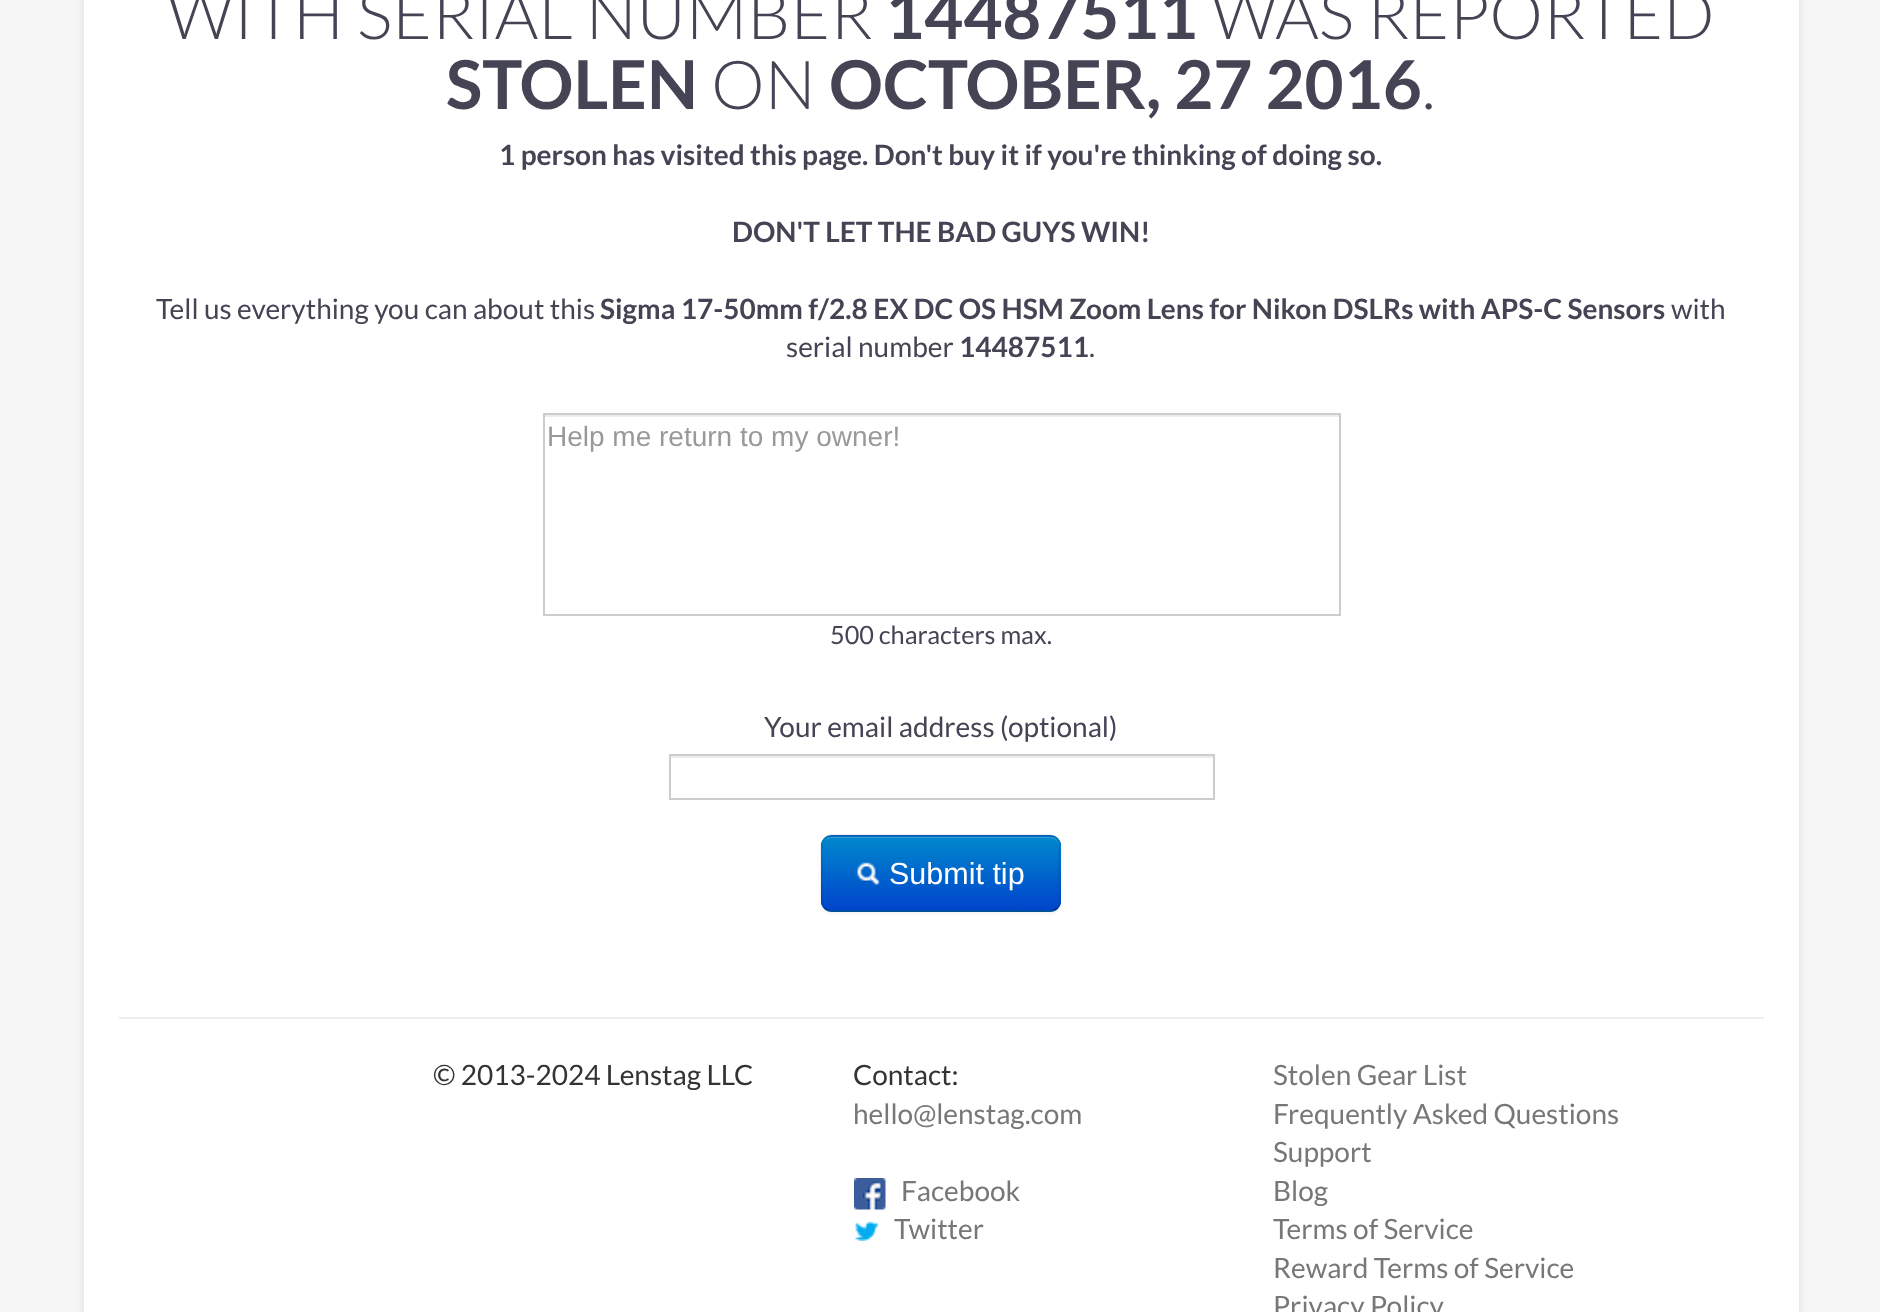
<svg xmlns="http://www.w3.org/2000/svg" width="1880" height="1312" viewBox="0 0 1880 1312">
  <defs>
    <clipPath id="clip1"><rect x="821" y="835" width="240" height="77" rx="11"/></clipPath>
    <linearGradient id="g1" gradientUnits="userSpaceOnUse" x1="941" y1="837" x2="941" y2="910"><stop offset="0" stop-color="#08c"/><stop offset="1" stop-color="#04c"/></linearGradient>
  </defs>
  <rect width="100%" height="100%" fill="#f6f6f6"/>
  <rect x="84" y="-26" width="1715" height="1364" rx="11" fill="#0000001a" filter="blur(5px)"/>
  <path d="M84 0h1715v1312H84z" fill="#fff"/>
  <path d="M544 415h795v2H544z" fill="#ececec"/>
  <path d="M544 414h796v201H544z" fill="none" stroke="#ccc" stroke-width="2"/>
  <path d="M670 756h543v2H670z" fill="#ececec"/>
  <path d="M670 755h544v44H670z" fill="none" stroke="#ccc" stroke-width="2"/>
  <rect x="821" y="837" width="240" height="77" rx="11" fill="#0000000d" filter="blur(2px)"/>
  <rect x="821" y="835" width="240" height="77" rx="11" fill="#006dcc"/>
  <g clip-path="url(#clip1)">
    <path d="M821 837h240v73H821z" fill="url(#g1)"/>
  </g>
  <path d="M831 838H1050C1055 838 1059 842 1059 847V846C1059 841 1055 837 1050 837H832C829 837 827 838 825 840C827 839 829 838 831 838Z" fill="#ffffff33"/>
  <path d="M1057 908C1055 910 1052.5 911 1050 911H831C828.5 911 826 910 824.5 908" fill="none" stroke="#00000040" stroke-width="1.8"/>
  <path d="M824.5 908C822.5 906.5 821.5 904 821.5 901V845C821.5 842.5 822.5 840 824.5 838.5C826 836.5 828.5 835.5 831 835.5H1050C1052.5 835.5 1055 836.5 1057 838.5C1058.5 840 1059.5 842.5 1059.5 845V901C1059.5 904 1058.5 906.5 1057 908" fill="none" stroke="#0000001a" stroke-width="1.8"/>
  <image x="857" y="862" width="24" height="24" href="img/1.png"/>
  <path d="M119 1017h1645v2H119z" fill="#eee"/>
  <image x="854" y="1178" width="32" height="32" href="img/2.png"/>
  <image x="854" y="1221" width="25" height="20" href="img/3.png"/>
  <text x="167" y="39" font-family="Lato" font-size="67.4" font-weight="300" fill="#445">WITH SERIAL NUMBER</text>
  <text x="885" y="39" font-family="Lato" font-size="67.4" font-weight="bold" fill="#445">14487511</text>
  <text x="1211" y="39" font-family="Lato" font-size="67.4" font-weight="300" fill="#445">WAS REPORTED</text>
  <text x="446" y="109" font-family="Lato" font-size="67.4" font-weight="bold" fill="#445">STOLEN</text>
  <text x="711" y="109" font-family="Lato" font-size="67.4" font-weight="300" fill="#445">ON</text>
  <text x="829" y="109" font-family="Lato" font-size="67.4" font-weight="bold" fill="#445">OCTOBER, 27 2016</text>
  <text x="1422" y="109" font-family="Lato" font-size="67.4" font-weight="300" fill="#445">.</text>
  <g font-family="Lato" font-size="28" font-weight="bold" fill="#445">
    <text x="499" y="165">1 person has visited this page. Don't buy it if you're thinking of doing so.</text>
    <text x="732" y="242">DON'T LET THE BAD GUYS WIN!</text>
  </g>
  <text x="156" y="319" font-family="Lato" font-size="28" fill="#445">Tell us everything you can about this</text>
  <text x="600" y="319" font-family="Lato" font-size="28" font-weight="bold" fill="#445">Sigma 17-50mm f/2.8 EX DC OS HSM Zoom Lens for Nikon DSLRs with APS-C Sensors</text>
  <g font-family="Lato" font-size="28" fill="#445">
    <text x="1671" y="319">with</text>
    <text x="786" y="357">serial number</text>
  </g>
  <text x="959" y="357" font-family="Lato" font-size="28" font-weight="bold" fill="#445">14487511</text>
  <text x="1089" y="357" font-family="Lato" font-size="28" fill="#445">.</text>
  <text x="547" y="446" font-family="Liberation Sans" font-size="28" fill="#999">Help me return to my owner!</text>
  <text x="830" y="644" font-family="Lato" font-size="25.25" fill="#445">500 characters max.</text>
  <text x="764" y="737" font-family="Lato" font-size="28" fill="#445">Your email address (optional)</text>
  <text x="889" y="884" font-family="Liberation Sans" font-size="30.5" fill="#fff">Submit tip</text>
  <g font-family="Lato" font-size="28" fill="#333">
    <text x="433" y="1085">© 2013-2024 Lenstag LLC</text>
    <text x="853" y="1085">Contact:</text>
  </g>
  <g font-family="Lato" font-size="28" fill="#777">
    <text x="853" y="1124">hello@lenstag.com</text>
    <text x="901" y="1201">Facebook</text>
    <text x="894" y="1239">Twitter</text>
    <text x="1273" y="1085">Stolen Gear List</text>
    <text x="1273" y="1124">Frequently Asked Questions</text>
    <text x="1273" y="1162">Support</text>
    <text x="1273" y="1201">Blog</text>
    <text x="1273" y="1239">Terms of Service</text>
    <text x="1273" y="1278">Reward Terms of Service</text>
    <text x="1273" y="1316">Privacy Policy</text>
  </g>
</svg>
